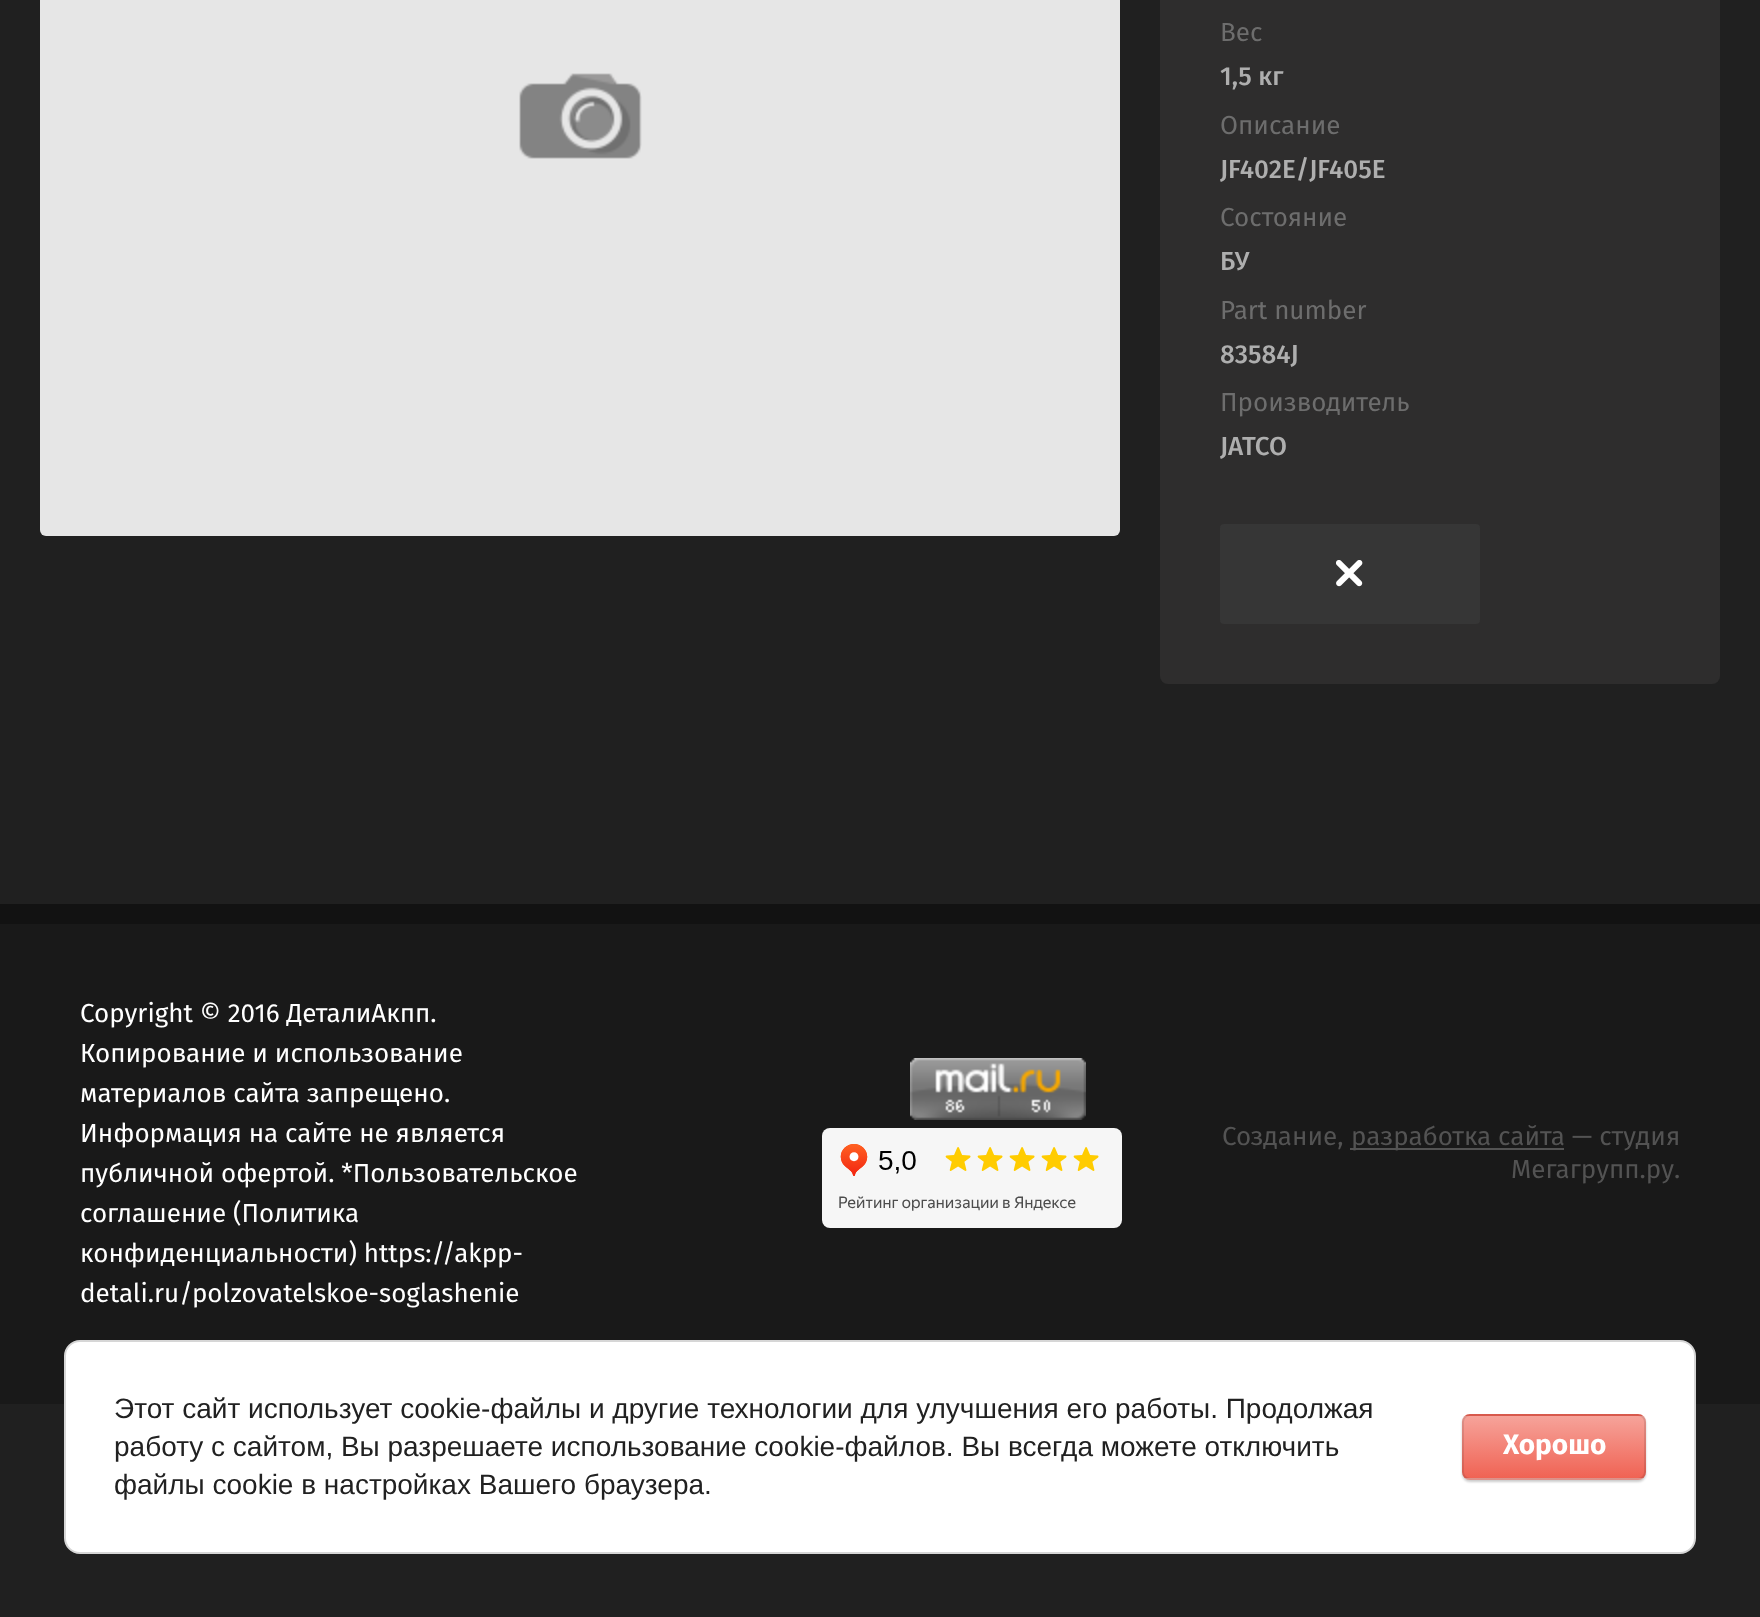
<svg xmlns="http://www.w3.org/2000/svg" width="1760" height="1617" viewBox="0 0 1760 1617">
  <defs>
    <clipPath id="clip1"><rect x="1462" y="1414" width="184" height="66" rx="8"/></clipPath>
    <linearGradient id="g1" gradientUnits="userSpaceOnUse" x1="1554" y1="1354" x2="1554" y2="1416"><stop offset="0" stop-color="#f6a39a"/><stop offset="1" stop-color="#f06354"/></linearGradient>
    <linearGradient id="g2" gradientUnits="userSpaceOnUse" x1="1554" y1="1416" x2="1554" y2="1478"><stop offset="0" stop-color="#f6a39a"/><stop offset="1" stop-color="#f06354"/></linearGradient>
    <linearGradient id="g3" gradientUnits="userSpaceOnUse" x1="1554" y1="1478" x2="1554" y2="1540"><stop offset="0" stop-color="#f6a39a"/><stop offset="1" stop-color="#f06354"/></linearGradient>
  </defs>
  <rect width="100%" height="100%" fill="#202020"/>
  <rect x="40" y="-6" width="1080" height="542" rx="6" fill="#e6e6e6"/>
  <image x="519" y="73" width="123" height="86" href="img/1.png"/>
  <rect x="1160" y="-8" width="560" height="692" rx="8" fill="#2e2d2d"/>
  <rect x="1220" y="524" width="260" height="100" rx="4" fill="#363636"/>
  <image x="1336" y="560" width="27" height="27" href="img/2.png"/>
  <path d="M0 924h1760v480H0z" fill="#191919"/>
  <path d="M0 904h1760v20H0z" fill="#121212"/>
  <image x="910" y="1058" width="176" height="62" href="img/3.png"/>
  <image x="822" y="1128" width="300" height="100" href="img/4.png"/>
  <path d="M1350 1148h214v2H1350z" fill="#535353"/>
  <rect x="65" y="1341" width="1630" height="212" rx="15" fill="#fff" stroke="#d6d6d6" stroke-width="2"/>
  <rect x="1462" y="1416" width="184" height="66" rx="8" fill="#00000033" filter="blur(1px)"/>
  <g clip-path="url(#clip1)">
    <path d="M1462 1414h184v2H1462z" fill="url(#g1)"/>
    <path d="M1462 1416h184v62H1462z" fill="url(#g2)"/>
    <path d="M1462 1478h184v2H1462z" fill="url(#g3)"/>
  </g>
  <rect x="1463" y="1415" width="182" height="64" rx="7" fill="none" stroke="#0000001a" stroke-width="2"/>
  <text x="1220" y="41" font-family="Fira Sans" font-size="26" fill="#6d6d6d">Вес</text>
  <text x="1220" y="85" font-family="Fira Sans" font-size="26" font-weight="500" fill="#aeaeae">1,5 кг</text>
  <text x="1220" y="134" font-family="Fira Sans" font-size="26" fill="#6d6d6d">Описание</text>
  <text x="1220" y="178" font-family="Fira Sans" font-size="26" font-weight="500" fill="#aeaeae">JF402E/JF405E</text>
  <text x="1220" y="226" font-family="Fira Sans" font-size="26" fill="#6d6d6d">Состояние</text>
  <text x="1220" y="270" font-family="Fira Sans" font-size="26" font-weight="500" fill="#aeaeae">БУ</text>
  <text x="1220" y="319" font-family="Fira Sans" font-size="26" fill="#6d6d6d">Part number</text>
  <text x="1220" y="363" font-family="Fira Sans" font-size="26" font-weight="500" fill="#aeaeae">83584J</text>
  <text x="1220" y="411" font-family="Fira Sans" font-size="26" fill="#6d6d6d">Производитель</text>
  <text x="1220" y="455" font-family="Fira Sans" font-size="26" font-weight="500" fill="#aeaeae">JATCO</text>
  <g font-family="Fira Sans" font-size="26" fill="#fff">
    <text x="80" y="1022">Copyright © 2016 ДеталиАкпп.</text>
    <text x="80" y="1062">Копирование и использование</text>
    <text x="80" y="1102">материалов сайта запрещено.</text>
    <text x="80" y="1142">Информация на сайте не является</text>
    <text x="80" y="1182">публичной офертой. *Пользовательское</text>
    <text x="80" y="1222">соглашение (Политика</text>
    <text x="80" y="1262">конфиденциальности) https://akpp-</text>
    <text x="80" y="1302">detali.ru/polzovatelskoe-soglashenie</text>
  </g>
  <g font-family="Fira Sans" font-size="26" fill="#535353">
    <text x="1222" y="1145">Создание,</text>
    <text x="1351" y="1145">разработка сайта — студия</text>
    <text x="1511" y="1178">Мегагрупп.ру.</text>
  </g>
  <g font-family="Liberation Sans" font-size="28" fill="#212121">
    <text x="114" y="1418">Этот сайт использует cookie-файлы и другие технологии для улучшения его работы. Продолжая</text>
    <text x="114" y="1456">работу с сайтом, Вы разрешаете использование cookie-файлов. Вы всегда можете отключить</text>
    <text x="114" y="1494">файлы cookie в настройках Вашего браузера.</text>
  </g>
  <text x="1503" y="1454" font-family="Fira Sans" font-size="28" font-weight="bold" fill="#fff">Хорошо</text>
</svg>
